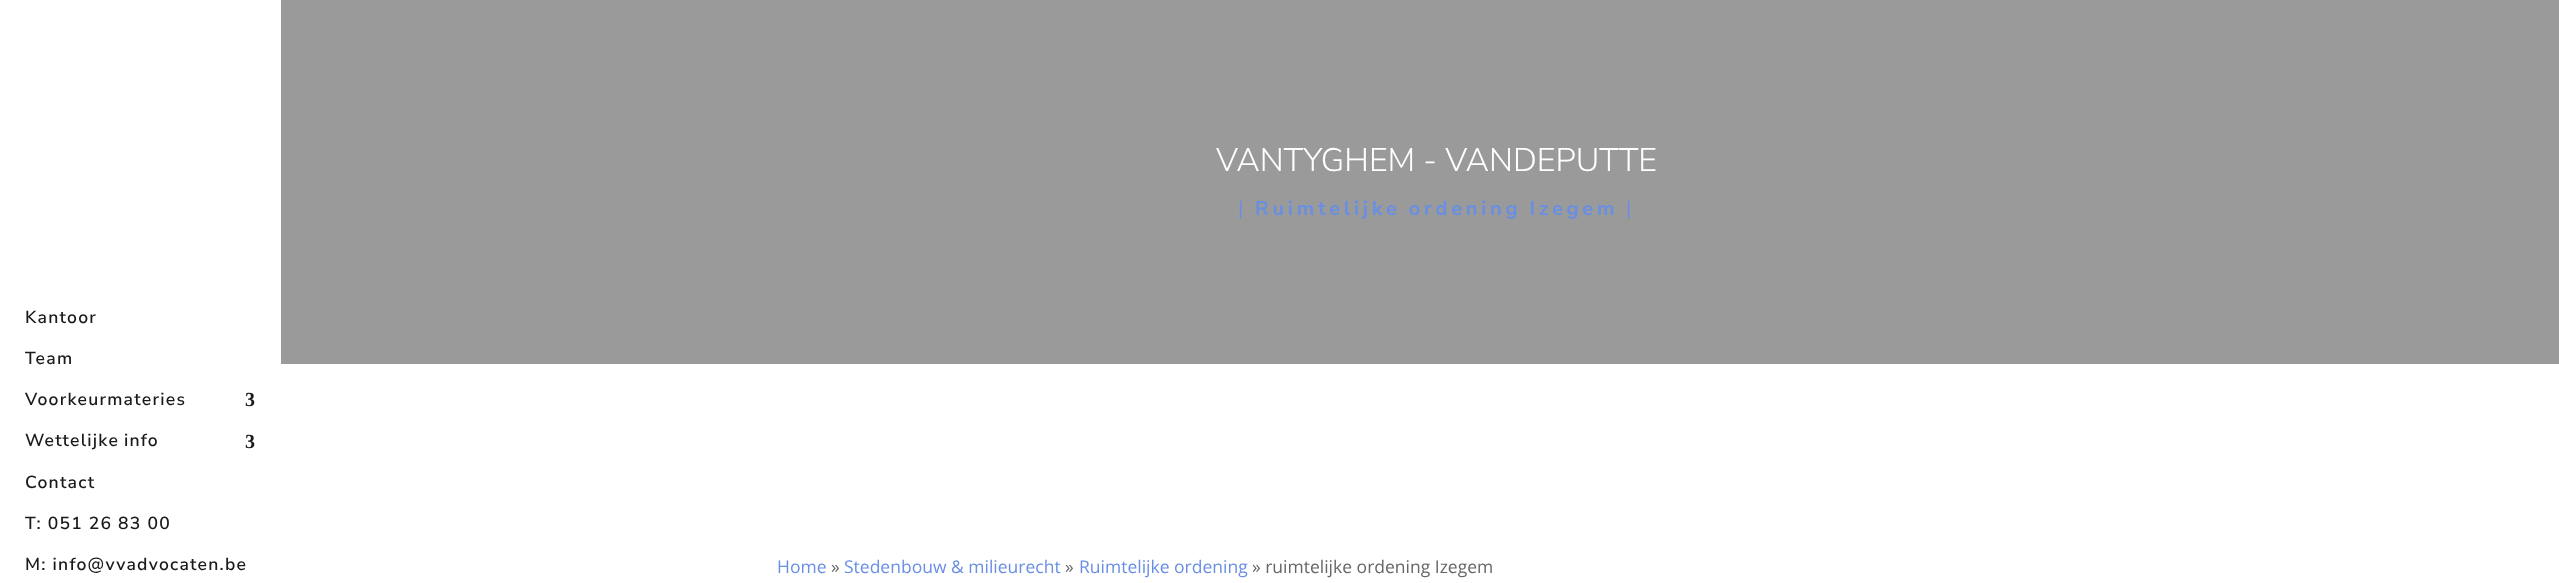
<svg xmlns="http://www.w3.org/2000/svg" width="2559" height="583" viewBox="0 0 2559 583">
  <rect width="100%" height="100%" fill="#fff"/>
  <path d="M281 0h2278v364H281z" fill="#9a9a9a"/>
  <g font-family="'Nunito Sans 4'" font-size="17.5" font-weight="200" letter-spacing="1.25" fill="#1a1a1a">
    <text x="25" y="323">Kantoor</text>
    <text x="25" y="364">Team</text>
    <text x="25" y="405">Voorkeurmateries</text>
  </g>
  <text x="245" y="406" font-family="Liberation Serif" font-size="20" font-weight="bold" letter-spacing="1.25" fill="#1a1a1a">3</text>
  <text x="25" y="446" word-spacing="-1" font-family="'Nunito Sans 4'" font-size="17.5" font-weight="200" letter-spacing="1.25" fill="#1a1a1a">Wettelijke info</text>
  <text x="245" y="448" font-family="Liberation Serif" font-size="20" font-weight="bold" letter-spacing="1.25" fill="#1a1a1a">3</text>
  <g font-family="'Nunito Sans 4'" font-size="17.5" font-weight="200" letter-spacing="1.25" fill="#1a1a1a">
    <text x="25" y="488">Contact</text>
    <text x="25" y="529">T: 051 26 83 00</text>
    <text x="25" y="570">M: info@vvadvocaten.be</text>
  </g>
  <text x="1216" y="171" font-family="Nunito Sans" font-size="32.5" font-weight="200" fill="#fff">VANTYGHEM - VANDEPUTTE</text>
  <text x="1238" y="215" font-family="'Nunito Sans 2'" font-size="20" font-weight="200" letter-spacing="3.75" fill="#698fe4">|</text>
  <text x="1255" y="215" word-spacing="-1" font-family="'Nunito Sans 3'" font-size="20" font-weight="200" letter-spacing="3.75" fill="#698fe4">Ruimtelijke ordening Izegem</text>
  <text x="1626" y="215" font-family="'Nunito Sans 2'" font-size="20" font-weight="200" letter-spacing="3.75" fill="#698fe4">|</text>
  <text x="777" y="573" font-family="Open Sans" font-size="17.5" fill="#698fe4">Home</text>
  <text x="831" y="573" font-family="Open Sans" font-size="17.5" fill="#666">»</text>
  <text x="844" y="573" font-family="Open Sans" font-size="17.5" fill="#698fe4">Stedenbouw &amp; milieurecht</text>
  <text x="1065" y="573" font-family="Open Sans" font-size="17.5" fill="#666">»</text>
  <text x="1079" y="573" font-family="Open Sans" font-size="17.5" fill="#698fe4">Ruimtelijke ordening</text>
  <text x="1252" y="573" font-family="Open Sans" font-size="17.5" fill="#666">» ruimtelijke ordening Izegem</text>
</svg>
